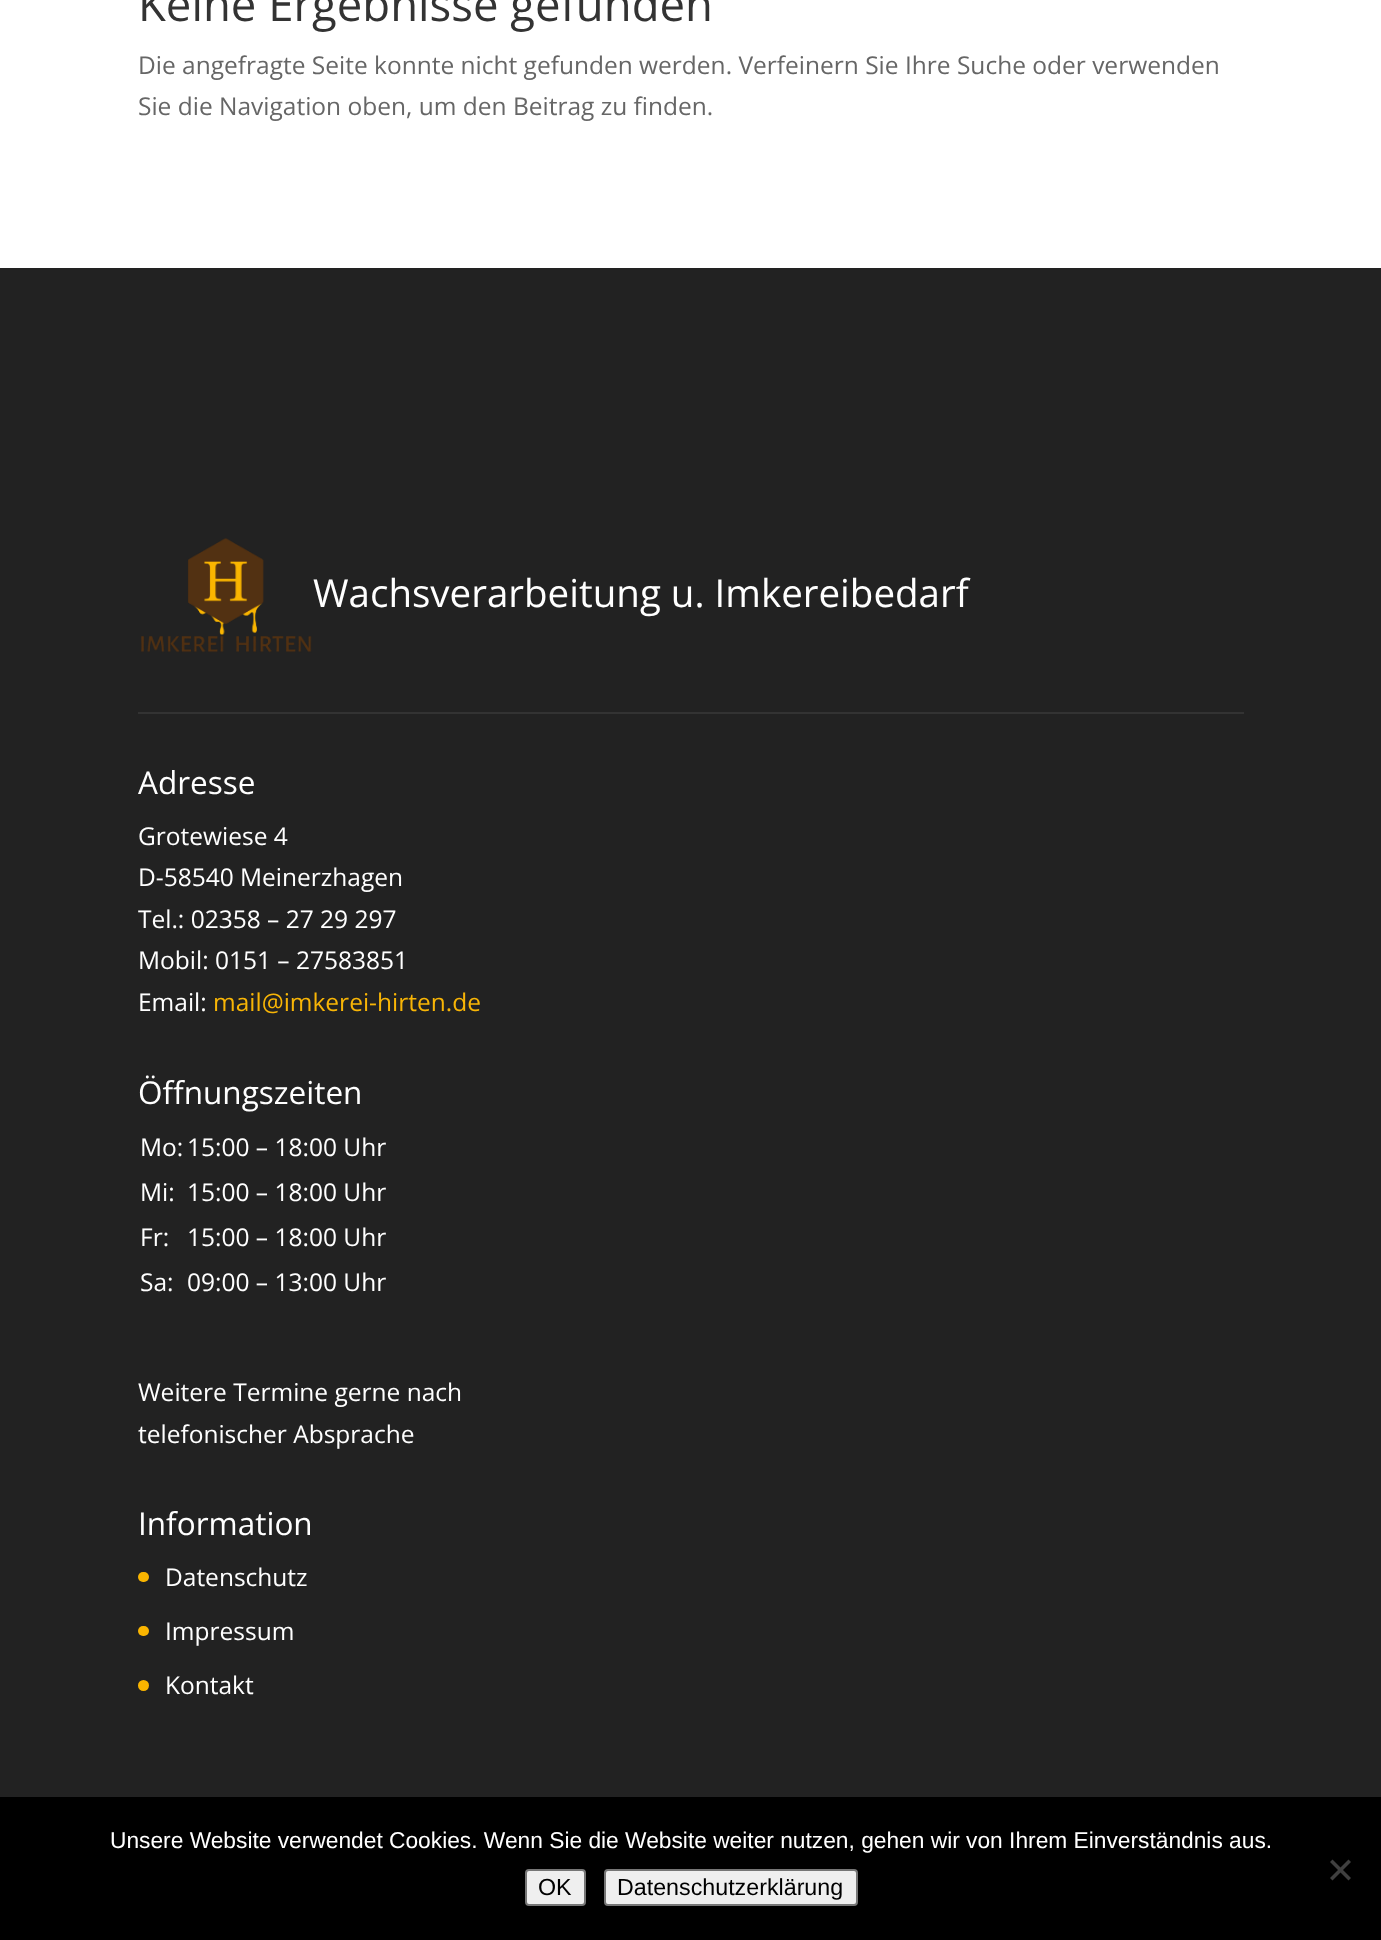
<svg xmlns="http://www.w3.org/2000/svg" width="1381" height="1940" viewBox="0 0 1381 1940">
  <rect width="100%" height="100%" fill="#fff"/>
  <path d="M0 268h1381v1529H0z" fill="#222"/>
  <image x="141" y="538" width="171" height="115" href="img/1.png"/>
  <path d="M138 712h1106v2H138z" fill="#333"/>
  <rect x="138" y="1572" width="11" height="10" rx="5" fill="#fab500"/>
  <rect x="138" y="1626" width="11" height="10" rx="5" fill="#fab500"/>
  <circle cx="143.5" cy="1685.5" r="5.5" fill="#fab500"/>
  <path d="M0 1797h1381v143H0z" fill="#000"/>
  <path d="M1348.5 1859.5L1351 1862L1332.5 1880.5L1330 1878Z" fill="#404040"/>
  <path d="M1330 1862L1332.5 1859.5L1351 1878L1348.5 1880.5Z" fill="#404040"/>
  <rect x="526" y="1870" width="59" height="35" rx="3" fill="#efefef" stroke="#767676" stroke-width="2"/>
  <rect x="605" y="1870" width="252" height="35" rx="3" fill="#efefef" stroke="#767676" stroke-width="2"/>
  <text x="138" y="21" font-family="Open Sans" font-size="45.5" fill="#333">Keine Ergebnisse gefunden</text>
  <g font-family="Open Sans" font-size="24.5" fill="#666">
    <text x="138" y="74">Die angefragte Seite konnte nicht gefunden werden. Verfeinern Sie Ihre Suche oder verwenden</text>
    <text x="138" y="115">Sie die Navigation oben, um den Beitrag zu finden.</text>
  </g>
  <text x="313" y="607" font-family="Open Sans" font-size="38.5" fill="#fff">Wachsverarbeitung u. Imkereibedarf</text>
  <text x="138" y="794" font-family="Open Sans" font-size="31.5" fill="#fff">Adresse</text>
  <g font-family="Open Sans" font-size="24.5" fill="#fff">
    <text x="138" y="845">Grotewiese 4</text>
    <text x="138" y="886">D-58540 Meinerzhagen</text>
    <text x="138" y="928">Tel.: 02358 – 27 29 297</text>
    <text x="138" y="969">Mobil: 0151 – 27583851</text>
    <text x="138" y="1011">Email:</text>
  </g>
  <text x="213" y="1011" font-family="Open Sans" font-size="24.5" fill="#f8b506">mail@imkerei-hirten.de</text>
  <text x="138" y="1104" font-family="Open Sans" font-size="31.5" fill="#fff">Öffnungszeiten</text>
  <g font-family="Open Sans" font-size="24.5" fill="#fff">
    <text x="140" y="1156">Mo:</text>
    <text x="187" y="1156">15:00 – 18:00 Uhr</text>
    <text x="140" y="1201">Mi:</text>
    <text x="187" y="1201">15:00 – 18:00 Uhr</text>
    <text x="140" y="1246">Fr:</text>
    <text x="187" y="1246">15:00 – 18:00 Uhr</text>
    <text x="140" y="1291">Sa:</text>
    <text x="187" y="1291">09:00 – 13:00 Uhr</text>
    <text x="138" y="1401">Weitere Termine gerne nach</text>
    <text x="138" y="1443">telefonischer Absprache</text>
  </g>
  <text x="138" y="1535" font-family="Open Sans" font-size="31.5" fill="#fff">Information</text>
  <g font-family="Open Sans" font-size="24.5" fill="#fff">
    <text x="165" y="1586">Datenschutz</text>
    <text x="165" y="1640">Impressum</text>
    <text x="165" y="1694">Kontakt</text>
  </g>
  <text x="110" y="1848" font-family="Liberation Sans" font-size="22.75" fill="#fff">Unsere Website verwendet Cookies. Wenn Sie die Website weiter nutzen, gehen wir von Ihrem Einverständnis aus.</text>
  <g font-family="Liberation Sans" font-size="23.25" fill="#000">
    <text x="538" y="1895">OK</text>
    <text x="617" y="1895">Datenschutzerklärung</text>
  </g>
</svg>
